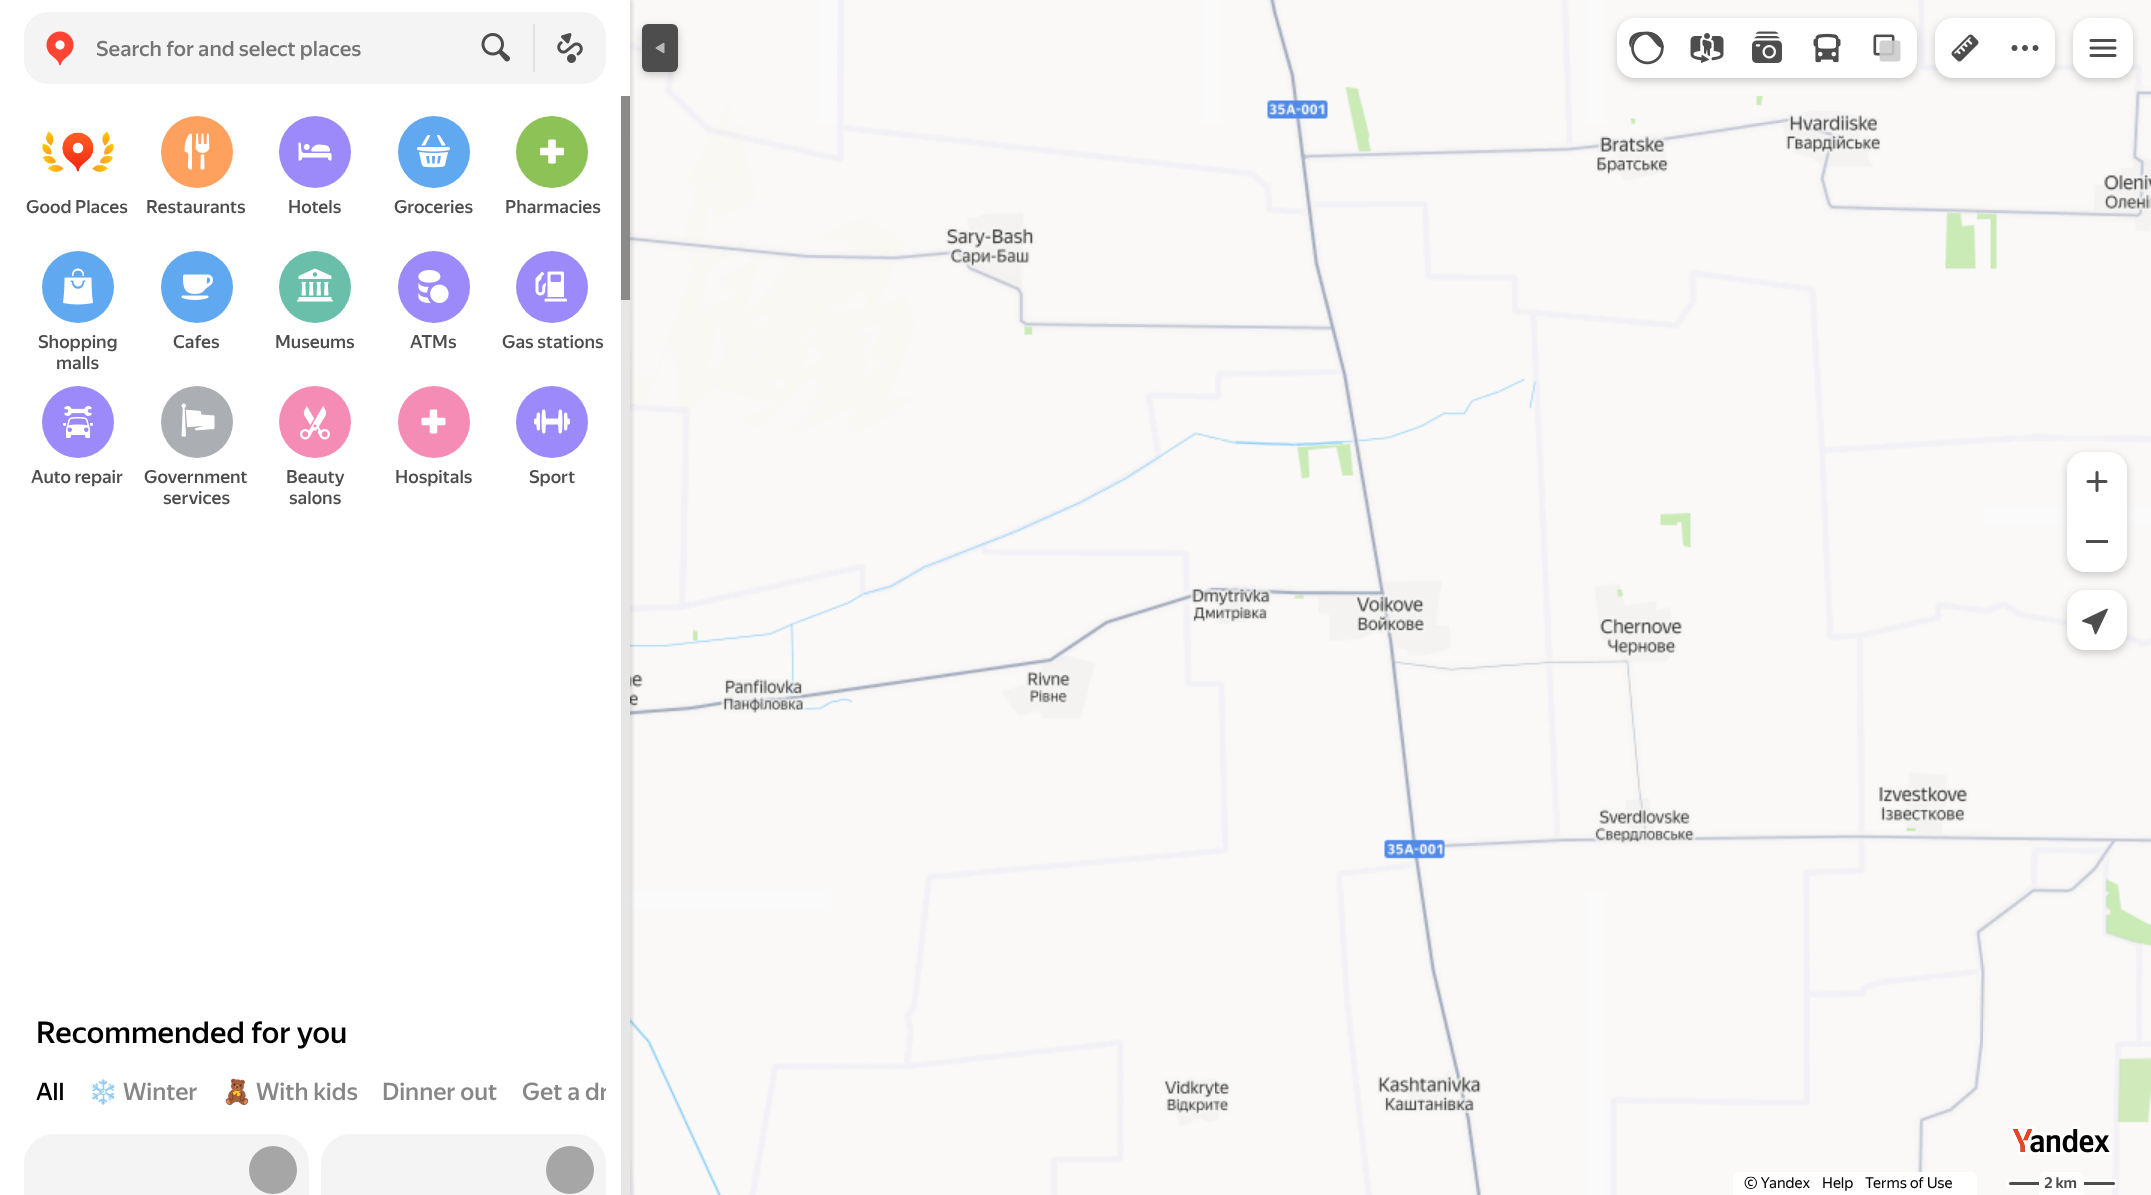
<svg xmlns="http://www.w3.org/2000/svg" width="2151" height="1195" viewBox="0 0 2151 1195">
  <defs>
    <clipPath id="clip1"><path d="M24 1062h582v60H24z"/></clipPath>
  </defs>
  <rect width="100%" height="100%" fill="#fff"/>
  <image x="630" y="0" width="1521" height="1195" href="img/1.png"/>
  <image x="630" y="0" width="188" height="123" href="img/2.png"/>
  <image x="837" y="0" width="365" height="123" href="img/3.png"/>
  <image x="1222" y="0" width="364" height="123" href="img/4.png"/>
  <image x="1606" y="0" width="377" height="123" href="img/5.png"/>
  <image x="1983" y="0" width="168" height="123" href="img/6.png"/>
  <image x="630" y="123" width="201" height="384" href="img/7.png"/>
  <image x="831" y="123" width="384" height="384" href="img/8.png"/>
  <image x="1215" y="123" width="384" height="384" href="img/9.png"/>
  <image x="1599" y="123" width="384" height="384" href="img/10.png"/>
  <image x="1983" y="123" width="168" height="383" href="img/11.png"/>
  <image x="630" y="507" width="201" height="383" href="img/12.png"/>
  <image x="831" y="507" width="384" height="384" href="img/13.png"/>
  <image x="1215" y="507" width="384" height="384" href="img/14.png"/>
  <image x="1599" y="507" width="384" height="384" href="img/15.png"/>
  <image x="1983" y="526" width="168" height="365" href="img/16.png"/>
  <image x="630" y="910" width="201" height="285" href="img/17.png"/>
  <image x="831" y="891" width="384" height="304" href="img/18.png"/>
  <image x="1215" y="891" width="371" height="304" href="img/19.png"/>
  <image x="1606" y="891" width="377" height="304" href="img/20.png"/>
  <image x="1983" y="891" width="168" height="304" href="img/21.png"/>
  <path d="M3 0h630v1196H3z" fill="#0000001a" filter="blur(1.5px)"/>
  <rect x="642" y="27" width="36" height="48" rx="6" fill="#00000033" filter="blur(4.5px)"/>
  <path d="M1 0h629v1195H1z" fill="#fff"/>
  <rect x="24" y="12" width="582" height="72" rx="24" fill="#f4f4f4"/>
  <image x="46" y="31" width="28" height="35" href="img/22.png"/>
  <image x="481" y="33" width="29" height="29" href="img/23.png"/>
  <path d="M533 24h2v48H533z" fill="#e0e0e0"/>
  <image x="557" y="33" width="26" height="30" href="img/24.png"/>
  <rect x="1617" y="21" width="300" height="60" rx="18" fill="#00000033" filter="blur(4.5px)"/>
  <path d="M1635 18H1677V78H1635C1625 78 1617 70 1617 60V36C1617 26 1625 18 1635 18Z" fill="#fff"/>
  <image x="1629" y="31" width="35" height="34" href="img/25.png"/>
  <path d="M1677 18h180v60H1677z" fill="#fff"/>
  <image x="1690" y="33" width="34" height="30" href="img/26.png"/>
  <path d="M1857 18H1899C1909 18 1917 26 1917 36V60C1917 70 1909 78 1899 78H1857Z" fill="#fff"/>
  <image x="1873" y="34" width="28" height="28" href="img/27.png"/>
  <image x="1752" y="31" width="30" height="32" href="img/28.png"/>
  <image x="1813" y="33" width="28" height="30" href="img/29.png"/>
  <rect x="1935" y="21" width="120" height="60" rx="18" fill="#00000033" filter="blur(4.5px)"/>
  <path d="M1953 18H1995V78H1953C1943 78 1935 70 1935 60V36C1935 26 1943 18 1953 18Z" fill="#fff"/>
  <image x="1951" y="34" width="28" height="28" href="img/30.png"/>
  <path d="M1995 18H2037C2047 18 2055 26 2055 36V60C2055 70 2047 78 2037 78H1995Z" fill="#fff"/>
  <image x="2011" y="45" width="28" height="6" href="img/31.png"/>
  <rect x="2073" y="21" width="60" height="60" rx="18" fill="#00000033" filter="blur(4.5px)"/>
  <rect x="2073" y="18" width="60" height="60" rx="18" fill="#fff"/>
  <image x="2089" y="39" width="28" height="18" href="img/32.png"/>
  <rect x="2067" y="455" width="60" height="120" rx="18" fill="#00000033" filter="blur(4.5px)"/>
  <path d="M2085 452H2109C2119 452 2127 460 2127 470V512H2067V470C2067 460 2075 452 2085 452Z" fill="#fff"/>
  <image x="2086" y="471" width="22" height="21" href="img/33.png"/>
  <path d="M2067 512H2127V554C2127 564 2119 572 2109 572H2085C2075 572 2067 564 2067 554Z" fill="#fff"/>
  <path d="M2086 540h22v3H2086z" fill="#4d4d4d"/>
  <rect x="2067" y="593" width="60" height="60" rx="18" fill="#00000033" filter="blur(4.5px)"/>
  <rect x="2067" y="590" width="60" height="60" rx="18" fill="#fff"/>
  <image x="2082" y="608" width="26" height="27" href="img/34.png"/>
  <rect x="642" y="24" width="36" height="48" rx="6" fill="#4d4d4d"/>
  <image x="655" y="42" width="10" height="12" href="img/35.png"/>
  <image x="42" y="131" width="72" height="41" href="img/36.png"/>
  <circle cx="197" cy="152" r="36" fill="#ffa15e"/>
  <image x="184" y="133" width="26" height="37" href="img/37.png"/>
  <circle cx="315" cy="152" r="36" fill="#9c89fa"/>
  <image x="298" y="142" width="34" height="19" href="img/38.png"/>
  <circle cx="434" cy="152" r="36" fill="#60a8f0"/>
  <image x="417" y="135" width="33" height="33" href="img/39.png"/>
  <circle cx="552" cy="152" r="36" fill="#8dc257"/>
  <image x="540" y="139" width="24" height="25" href="img/40.png"/>
  <circle cx="78" cy="287" r="36" fill="#60a8f0"/>
  <image x="63" y="268" width="30" height="37" href="img/41.png"/>
  <circle cx="197" cy="287" r="36" fill="#60a8f0"/>
  <image x="181" y="274" width="32" height="26" href="img/42.png"/>
  <circle cx="315" cy="287" r="36" fill="#69bfaa"/>
  <image x="297" y="268" width="36" height="34" href="img/43.png"/>
  <circle cx="434" cy="287" r="36" fill="#9c89fa"/>
  <image x="418" y="270" width="31" height="33" href="img/44.png"/>
  <circle cx="552" cy="287" r="36" fill="#9c89fa"/>
  <image x="535" y="271" width="32" height="31" href="img/45.png"/>
  <circle cx="78" cy="422" r="36" fill="#9c89fa"/>
  <image x="63" y="405" width="30" height="33" href="img/46.png"/>
  <circle cx="197" cy="422" r="36" fill="#abaeb2"/>
  <image x="181" y="403" width="34" height="34" href="img/47.png"/>
  <circle cx="315" cy="422" r="36" fill="#f58cb6"/>
  <image x="300" y="406" width="30" height="34" href="img/48.png"/>
  <circle cx="434" cy="422" r="36" fill="#f58cb6"/>
  <image x="421" y="409" width="25" height="25" href="img/49.png"/>
  <circle cx="552" cy="422" r="36" fill="#9c89fa"/>
  <image x="534" y="409" width="36" height="25" href="img/50.png"/>
  <path d="M54 1134H279C295.5 1134 309 1147.5 309 1164V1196H24V1164C24 1147.5 37.5 1134 54 1134Z" fill="#f4f4f4"/>
  <circle cx="273" cy="1170" r="24" fill="#a6a6a6"/>
  <path d="M351 1134H576C592.5 1134 606 1147.5 606 1164V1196H321V1164C321 1147.5 334.5 1134 351 1134Z" fill="#f4f4f4"/>
  <circle cx="570" cy="1170" r="24" fill="#a6a6a6"/>
  <path d="M621 96h9v204H621z" fill="#8a8a8a"/>
  <path d="M621 300h9v895H621z" fill="#e6e6e6"/>
  <image x="2010" y="1126" width="102" height="29" href="img/51.png"/>
  <path d="M1739 1172H1971C1974.5 1172 1977 1174.5 1977 1178V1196H1733V1178C1733 1174.5 1735.5 1172 1739 1172Z" fill="#fff"/>
  <rect x="2006" y="1179" width="112" height="9" rx="4.5" fill="#ffffff99"/>
  <rect x="2009" y="1182" width="106" height="3" rx="1.5" fill="#4d4d4d"/>
  <path d="M2045 1172H2078C2081.5 1172 2084 1174.5 2084 1178V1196H2039V1178C2039 1174.5 2041.5 1172 2045 1172Z" fill="#fff"/>
  <text x="96" y="56" font-family="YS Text" font-size="21" font-weight="500" fill="#757575">Search for and select places</text>
  <g font-family="YS Text" font-size="18" font-weight="500" fill="#4d4d4d">
    <text x="26" y="213">Good Places</text>
    <text x="146" y="213">Restaurants</text>
    <text x="288" y="213">Hotels</text>
    <text x="394" y="213">Groceries</text>
    <text x="505" y="213">Pharmacies</text>
    <text x="38" y="348">Shopping</text>
    <text x="56" y="369">malls</text>
    <text x="173" y="348">Cafes</text>
    <text x="275" y="348">Museums</text>
    <text x="410" y="348">ATMs</text>
    <text x="502" y="348">Gas stations</text>
    <text x="31" y="483">Auto repair</text>
    <text x="144" y="483">Government</text>
    <text x="163" y="504">services</text>
    <text x="286" y="483">Beauty</text>
    <text x="289" y="504">salons</text>
    <text x="395" y="483">Hospitals</text>
    <text x="529" y="483">Sport</text>
  </g>
  <text x="36" y="1043" font-family="YS Text" font-size="30" font-weight="500" fill="#000">Recommended for you</text>
  <text x="36" y="1100" font-family="YS Text" font-size="24" font-weight="500" fill="#000">All</text>
  <text x="88" y="1100" font-family="Noto Color Emoji" font-size="24" fill="#878787">❄️</text>
  <text x="123" y="1100" font-family="YS Text" font-size="24" font-weight="500" fill="#878787">Winter</text>
  <text x="222" y="1100" font-family="Noto Color Emoji" font-size="24" fill="#878787">🧸</text>
  <g font-family="YS Text" font-size="24" font-weight="500" fill="#878787">
    <text x="256" y="1100">With kids</text>
    <text x="382" y="1100">Dinner out</text>
  </g>
  <g clip-path="url(#clip1)">
    <text x="522" y="1100" font-family="YS Text" font-size="24" font-weight="500" fill="#878787">Get a dr</text>
  </g>
  <g font-family="YS Text" font-size="15" fill="#000">
    <text x="1744" y="1188">© Yandex</text>
    <text x="1822" y="1188">Help</text>
    <text x="1865" y="1188">Terms of Use</text>
  </g>
  <text x="2044" y="1188" font-family="YS Text" font-size="15" font-weight="bold" fill="#4d4d4d">2 km</text>
</svg>
